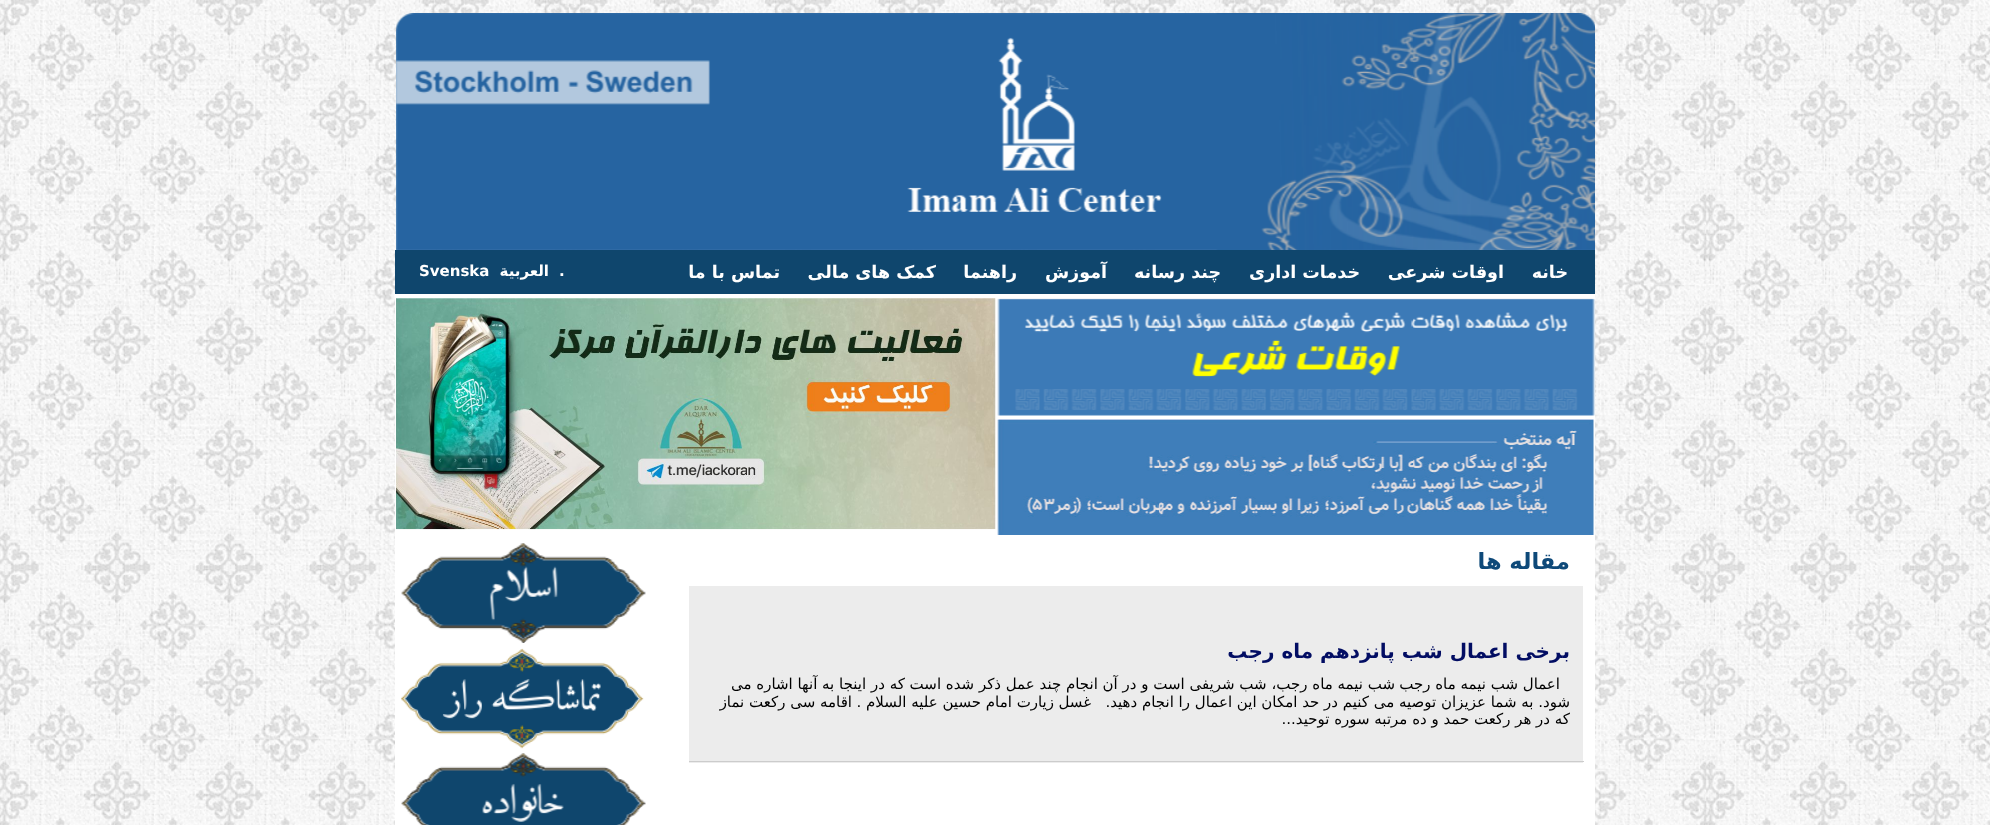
<svg xmlns="http://www.w3.org/2000/svg" width="1990" height="825" viewBox="0 0 1990 825">
  <rect width="100%" height="100%" fill="#fff"/>
  <image x="0" y="0" width="1990" height="825" href="img/1.png"/>
  <image x="396" y="13" width="1199" height="237" href="img/2.png"/>
  <path d="M395 250h1200v44H395z" fill="#0f466d"/>
  <path d="M395 294h1200v531H395z" fill="#fff"/>
  <image x="997" y="298" width="598" height="118" href="img/3.png"/>
  <image x="997" y="419" width="598" height="116" href="img/4.png"/>
  <image x="396" y="298" width="600" height="232" href="img/5.png"/>
  <path d="M689 586h894v177H689z" fill="#ececec"/>
  <path d="M689 761h895v1H689z" fill="#ccc"/>
  <image x="401" y="543" width="245" height="100" href="img/6.png"/>
  <image x="401" y="648" width="243" height="101" href="img/7.png"/>
  <image x="401" y="753" width="245" height="72" href="img/8.png"/>
  <g font-family="DejaVu Sans" font-size="17.5" font-weight="bold" direction="rtl" fill="#fff">
    <text x="1568" y="278">خانه</text>
    <text x="1504" y="278">اوقات شرعی</text>
    <text x="1360" y="278">خدمات اداری</text>
    <text x="1221" y="278">چند رسانه</text>
    <text x="1107" y="278">آموزش</text>
    <text x="1017" y="278">راهنما</text>
    <text x="936" y="278">کمک های مالی</text>
    <text x="780" y="278">تماس با ما</text>
  </g>
  <text x="559" y="276" font-family="DejaVu Sans" font-size="15" font-weight="bold" fill="#fff">.</text>
  <text x="549" y="276" font-family="DejaVu Sans" font-size="15" font-weight="bold" direction="rtl" fill="#fff">العربية</text>
  <text x="419" y="276" font-family="DejaVu Sans" font-size="15" font-weight="bold" fill="#fff">Svenska</text>
  <text x="1570" y="569" font-family="DejaVu Sans" font-size="22.5" font-weight="bold" direction="rtl" fill="#0e4979">مقاله ها</text>
  <text x="1570" y="658" font-family="DejaVu Sans" font-size="20" font-weight="bold" direction="rtl" fill="#020d63">برخی اعمال شب پانزدهم ماه رجب</text>
  <g font-family="DejaVu Sans" font-size="15" direction="rtl" fill="#000">
    <text x="1560" y="689">اعمال شب نیمه ماه رجب</text>
    <text x="1395" y="689">شب نیمه ماه رجب، شب شریفى است و در آن انجام چند عمل ذکر شده است که در اینجا به آنها اشاره می</text>
    <text x="1570" y="707">شود. به شما عزیزان توصیه می کنیم در حد امکان این اعمال را انجام دهید.</text>
    <text x="1091" y="707">غسل</text>
    <text x="1054" y="707">زیارت امام حسین علیه السلام .</text>
    <text x="852" y="707">اقامه سى ركعت نماز</text>
    <text x="1570" y="724">که در هر ركعت حمد و ده مرتبه سوره توحید...</text>
  </g>
</svg>
